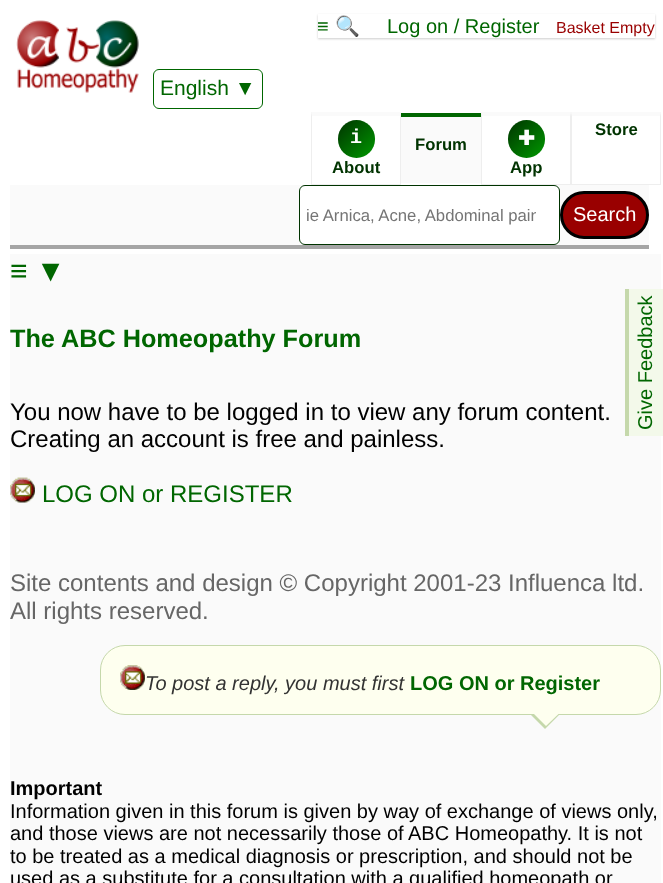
<svg xmlns="http://www.w3.org/2000/svg" width="663" height="883" viewBox="0 0 663 883">
  <defs>
    <linearGradient id="g1" gradientUnits="userSpaceOnUse" x1="338" y1="120" x2="375" y2="158"><stop offset="0" stop-color="#030"/><stop offset="1" stop-color="#090"/></linearGradient>
    <linearGradient id="g2" gradientUnits="userSpaceOnUse" x1="508" y1="120" x2="545" y2="158"><stop offset="0" stop-color="#030"/><stop offset="1" stop-color="#090"/></linearGradient>
    <clipPath id="clip1"><path d="M306 206h230v19H306z"/></clipPath>
  </defs>
  <rect width="100%" height="100%" fill="#fff"/>
  <path d="M318 15h337v24H318z" fill="#00000033" filter="blur(1px)"/>
  <path d="M318 14h337v24H318z" fill="#fff"/>
  <image x="16" y="20" width="123" height="73" href="img/1.png"/>
  <rect x="153.5" y="69.5" width="109" height="39" rx="5.5" fill="none" stroke="#060"/>
  <path d="M311 112H401L400 116H312Z" fill="#fafafa"/>
  <path d="M401 112V185L400 184V116Z" fill="#eee"/>
  <path d="M311 184h90v1H311z" fill="#eee"/>
  <path d="M311 185V112L312 116V184Z" fill="#eee"/>
  <rect x="338" y="120" width="37" height="38" rx="18.5" fill="url(#g1)"/>
  <path d="M401 117h80v66H401z" fill="#fafafa"/>
  <path d="M401 113h80v4H401z" fill="#060"/>
  <path d="M481 112H571L570 116H482Z" fill="#fafafa"/>
  <path d="M571 112V185L570 184V116Z" fill="#eee"/>
  <path d="M481 184h90v1H481z" fill="#eee"/>
  <path d="M481 185V112L482 116V184Z" fill="#eee"/>
  <rect x="508" y="120" width="37" height="38" rx="18.5" fill="url(#g2)"/>
  <path d="M571 112H661L660 116H572Z" fill="#fafafa"/>
  <path d="M661 112V185L660 184V116Z" fill="#eee"/>
  <path d="M571 184h90v1H571z" fill="#eee"/>
  <path d="M571 185V112L572 116V184Z" fill="#eee"/>
  <path d="M10 185h639v60H10z" fill="#fafafa"/>
  <path d="M10 245h639v4H10z" fill="#a5a5a5"/>
  <rect x="299.5" y="185.5" width="260" height="59" rx="5.5" fill="#fff" stroke="#030"/>
  <rect x="561.5" y="192.5" width="86" height="45" rx="22.5" fill="#900" stroke="#000" stroke-width="3"/>
  <path d="M10 254h651v629H10z" fill="#fafafa"/>
  <path d="M629 289h34v147H629z" fill="#f3f9ea"/>
  <path d="M625 289h4v147H625z" fill="#c5d8ab"/>
  <image x="10" y="477" width="25" height="26" href="img/2.png"/>
  <rect x="100.5" y="645.5" width="560" height="69" rx="24.5" fill="#feffef" stroke="#c5d8ab"/>
  <image x="120" y="665" width="25" height="25" href="img/3.png"/>
  <path d="M530 714H560L545 729Z" fill="#c5d8ab"/>
  <path d="M532.5 712.5H560L546 726Z" fill="#feffef"/>
  <text x="317" y="33" font-family="Liberation Sans" font-size="20" fill="#060">≡</text>
  <text x="335" y="33" font-family="Noto Color Emoji" font-size="20" fill="#060">🔍</text>
  <text x="387" y="33" font-family="Liberation Sans" font-size="20" fill="#060">Log on / Register</text>
  <text x="556" y="33" font-family="Liberation Sans" font-size="16" fill="#900">Basket Empty</text>
  <text x="160" y="95" font-family="Liberation Sans" font-size="21" fill="#060">English ▼</text>
  <text x="350" y="143" font-family="Liberation Mono" font-size="20" font-weight="bold" fill="#fff">i</text>
  <g font-family="Liberation Sans" font-size="16.7" font-weight="bold" fill="#030">
    <text x="332" y="173">About</text>
    <text x="415" y="150">Forum</text>
  </g>
  <text x="518" y="145" font-family="DejaVu Sans" font-size="20" font-weight="bold" fill="#fff">✚</text>
  <g font-family="Liberation Sans" font-size="16.7" font-weight="bold" fill="#030">
    <text x="510" y="173">App</text>
    <text x="595" y="135">Store</text>
  </g>
  <g clip-path="url(#clip1)">
    <text x="306" y="221" font-family="Liberation Sans" font-size="16.7" fill="#757575">ie Arnica, Acne, Abdominal pain</text>
  </g>
  <text x="573" y="221" font-family="Liberation Sans" font-size="20" fill="#fff">Search</text>
  <text x="652" y="430" transform="rotate(-90 652 430)" font-family="Liberation Sans" font-size="20" fill="#060">Give Feedback</text>
  <text x="10" y="281" font-family="Liberation Sans" font-size="30" fill="#060">≡ ▼</text>
  <text x="10" y="347" font-family="Liberation Sans" font-size="25.25" font-weight="bold" fill="#060">The ABC Homeopathy Forum</text>
  <g font-family="Liberation Sans" font-size="24" fill="#000">
    <text x="10" y="420">You now have to be logged in to view any forum content.</text>
    <text x="10" y="447">Creating an account is free and painless.</text>
  </g>
  <text x="42" y="502" font-family="Liberation Sans" font-size="24" fill="#060">LOG ON or REGISTER</text>
  <g font-family="Liberation Sans" font-size="24" fill="#666">
    <text x="10" y="591">Site contents and design © Copyright 2001-23 Influenca ltd.</text>
    <text x="10" y="619">All rights reserved.</text>
  </g>
  <text x="145" y="690" font-family="Liberation Sans" font-size="20" font-style="italic" fill="#333">To post a reply, you must first</text>
  <text x="410" y="690" font-family="Liberation Sans" font-size="20" font-weight="bold" fill="#060">LOG ON or Register</text>
  <text x="10" y="795" font-family="Liberation Sans" font-size="20" font-weight="bold" fill="#000">Important</text>
  <g font-family="Liberation Sans" font-size="20" fill="#000">
    <text x="10" y="818">Information given in this forum is given by way of exchange of views only,</text>
    <text x="10" y="840">and those views are not necessarily those of ABC Homeopathy. It is not</text>
    <text x="10" y="863">to be treated as a medical diagnosis or prescription, and should not be</text>
    <text x="10" y="885">used as a substitute for a consultation with a qualified homeopath or</text>
  </g>
</svg>
